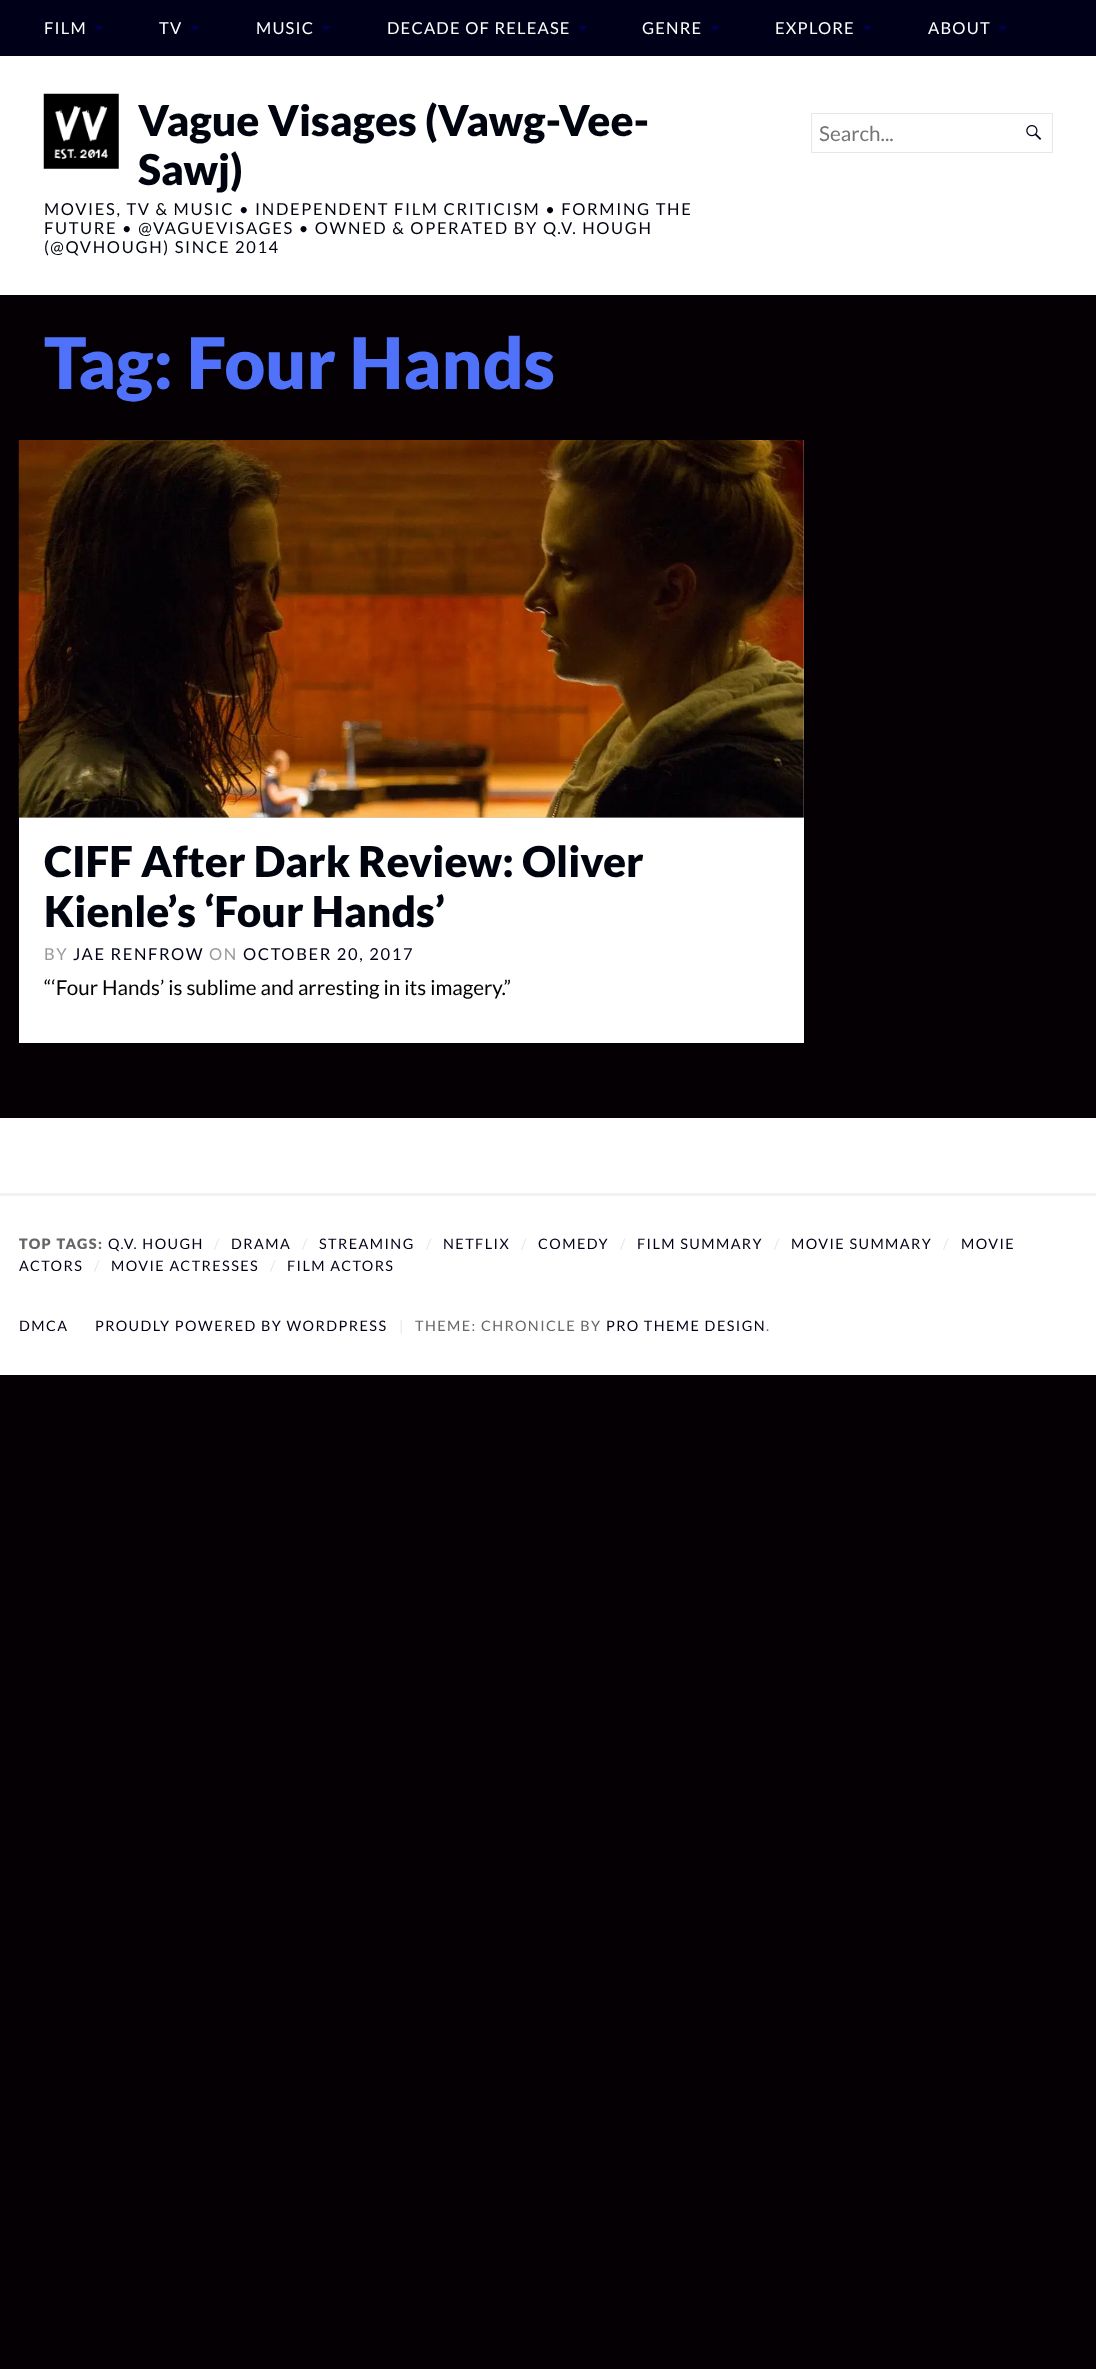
<svg xmlns="http://www.w3.org/2000/svg" width="1096" height="2369" viewBox="0 0 1096 2369">
  <rect width="100%" height="100%" fill="#040004"/>
  <path d="M0 0h1096v56H0z" fill="#000018"/>
  <path d="M94 26H104L99 31Z" fill="#00004c"/>
  <path d="M190 26H200L195 31Z" fill="#00004c"/>
  <path d="M321 26H331L326 31Z" fill="#00004c"/>
  <path d="M577.5 26H587.5L582.5 31Z" fill="#00004c"/>
  <path d="M710 26H720L715 31Z" fill="#00004c"/>
  <path d="M862.5 26H872.5L867.5 31Z" fill="#00004c"/>
  <path d="M997.5 26H1007.5L1002.5 31Z" fill="#00004c"/>
  <path d="M0 56h1096v239H0z" fill="#fff"/>
  <image x="43" y="93" width="76" height="76" href="img/1.png"/>
  <path d="M811.5 113.5h241v39H811.5z" fill="none" stroke="#e6e6e6"/>
  <image x="1026" y="125" width="16" height="15" href="img/2.png"/>
  <path d="M19 818h785v225H19z" fill="#fff"/>
  <path d="M19 440h785v378H19z" fill="#ccc"/>
  <image x="18" y="440" width="786" height="378" href="img/3.png"/>
  <path d="M0 1118h1096v257H0z" fill="#fff"/>
  <path d="M0 1193h1096v3H0z" fill="#f2f2f2"/>
  <g font-family="Lato" font-size="16.5" letter-spacing="1.2" fill="#fff">
    <text x="44" y="34">FILM</text>
    <text x="159" y="34">TV</text>
    <text x="256" y="34">MUSIC</text>
    <text x="387" y="34">DECADE OF RELEASE</text>
    <text x="642" y="34">GENRE</text>
    <text x="775" y="34">EXPLORE</text>
    <text x="928" y="34">ABOUT</text>
  </g>
  <g font-family="Lato" font-size="42.5" font-weight="900" fill="#00040f">
    <text x="138" y="136">Vague Visages (Vawg-Vee-</text>
    <text x="138" y="185">Sawj)</text>
  </g>
  <g font-family="Lato" font-size="16.5" letter-spacing="1.65" fill="#00040f">
    <text x="44" y="215">MOVIES, TV &amp; MUSIC • INDEPENDENT FILM CRITICISM • FORMING THE</text>
    <text x="44" y="234">FUTURE • @VAGUEVISAGES • OWNED &amp; OPERATED BY Q.V. HOUGH</text>
    <text x="44" y="253">(@QVHOUGH) SINCE 2014</text>
  </g>
  <text x="819" y="141" font-family="Lato" font-size="20.6" fill="#757575">Search...</text>
  <text x="44" y="389" font-family="Lato" font-size="71" font-weight="900" fill="#5072fb">Tag: Four Hands</text>
  <g font-family="Lato" font-size="42.5" font-weight="900" fill="#00040f">
    <text x="44" y="877">CIFF After Dark Review: Oliver</text>
    <text x="44" y="927">Kienle’s ‘Four Hands’</text>
  </g>
  <text x="44" y="960" font-family="Lato" font-size="16.5" letter-spacing="1.65" fill="#999">BY</text>
  <text x="73" y="960" font-family="Lato" font-size="16.5" letter-spacing="1.65" fill="#000018">JAE RENFROW</text>
  <text x="209" y="960" font-family="Lato" font-size="16.5" letter-spacing="1.65" fill="#999">ON</text>
  <text x="243" y="960" font-family="Lato" font-size="16.5" letter-spacing="1.65" fill="#000018">OCTOBER 20, 2017</text>
  <text x="44" y="995" font-family="Lato" font-size="20.6" fill="#000">“‘Four Hands’ is sublime and arresting in its imagery.”</text>
  <text x="19" y="1249" font-family="Lato" font-size="14.4" font-weight="900" letter-spacing="1.45" fill="#666">TOP TAGS:</text>
  <text x="108" y="1249" font-family="Lato" font-size="14.4" letter-spacing="1.45" fill="#000018">Q.V. HOUGH</text>
  <text x="214" y="1249" font-family="Lato" font-size="14.4" letter-spacing="1.45" fill="#e6e6e6">/</text>
  <text x="231" y="1249" font-family="Lato" font-size="14.4" letter-spacing="1.45" fill="#000018">DRAMA</text>
  <text x="302" y="1249" font-family="Lato" font-size="14.4" letter-spacing="1.45" fill="#e6e6e6">/</text>
  <text x="319" y="1249" font-family="Lato" font-size="14.4" letter-spacing="1.45" fill="#000018">STREAMING</text>
  <text x="426" y="1249" font-family="Lato" font-size="14.4" letter-spacing="1.45" fill="#e6e6e6">/</text>
  <text x="443" y="1249" font-family="Lato" font-size="14.4" letter-spacing="1.45" fill="#000018">NETFLIX</text>
  <text x="521" y="1249" font-family="Lato" font-size="14.4" letter-spacing="1.45" fill="#e6e6e6">/</text>
  <text x="538" y="1249" font-family="Lato" font-size="14.4" letter-spacing="1.45" fill="#000018">COMEDY</text>
  <text x="620" y="1249" font-family="Lato" font-size="14.4" letter-spacing="1.45" fill="#e6e6e6">/</text>
  <text x="637" y="1249" font-family="Lato" font-size="14.4" letter-spacing="1.45" fill="#000018">FILM SUMMARY</text>
  <text x="774" y="1249" font-family="Lato" font-size="14.4" letter-spacing="1.45" fill="#e6e6e6">/</text>
  <text x="791" y="1249" font-family="Lato" font-size="14.4" letter-spacing="1.45" fill="#000018">MOVIE SUMMARY</text>
  <text x="943" y="1249" font-family="Lato" font-size="14.4" letter-spacing="1.45" fill="#e6e6e6">/</text>
  <g font-family="Lato" font-size="14.4" letter-spacing="1.45" fill="#000018">
    <text x="961" y="1249">MOVIE</text>
    <text x="19" y="1271">ACTORS</text>
  </g>
  <text x="94" y="1271" font-family="Lato" font-size="14.4" letter-spacing="1.45" fill="#e6e6e6">/</text>
  <text x="111" y="1271" font-family="Lato" font-size="14.4" letter-spacing="1.45" fill="#000018">MOVIE ACTRESSES</text>
  <text x="270" y="1271" font-family="Lato" font-size="14.4" letter-spacing="1.45" fill="#e6e6e6">/</text>
  <g font-family="Lato" font-size="14.4" letter-spacing="1.45" fill="#000018">
    <text x="287" y="1271">FILM ACTORS</text>
    <text x="19" y="1331">DMCA</text>
    <text x="95" y="1331">PROUDLY POWERED BY WORDPRESS</text>
  </g>
  <text x="399" y="1331" font-family="Lato" font-size="14.4" letter-spacing="1.45" fill="#e6e6e6">|</text>
  <text x="415" y="1331" font-family="Lato" font-size="14.4" letter-spacing="1.45" fill="#666">THEME: CHRONICLE BY</text>
  <text x="606" y="1331" font-family="Lato" font-size="14.4" letter-spacing="1.45" fill="#000018">PRO THEME DESIGN</text>
  <text x="766" y="1331" font-family="Lato" font-size="14.4" letter-spacing="1.45" fill="#666">.</text>
</svg>
